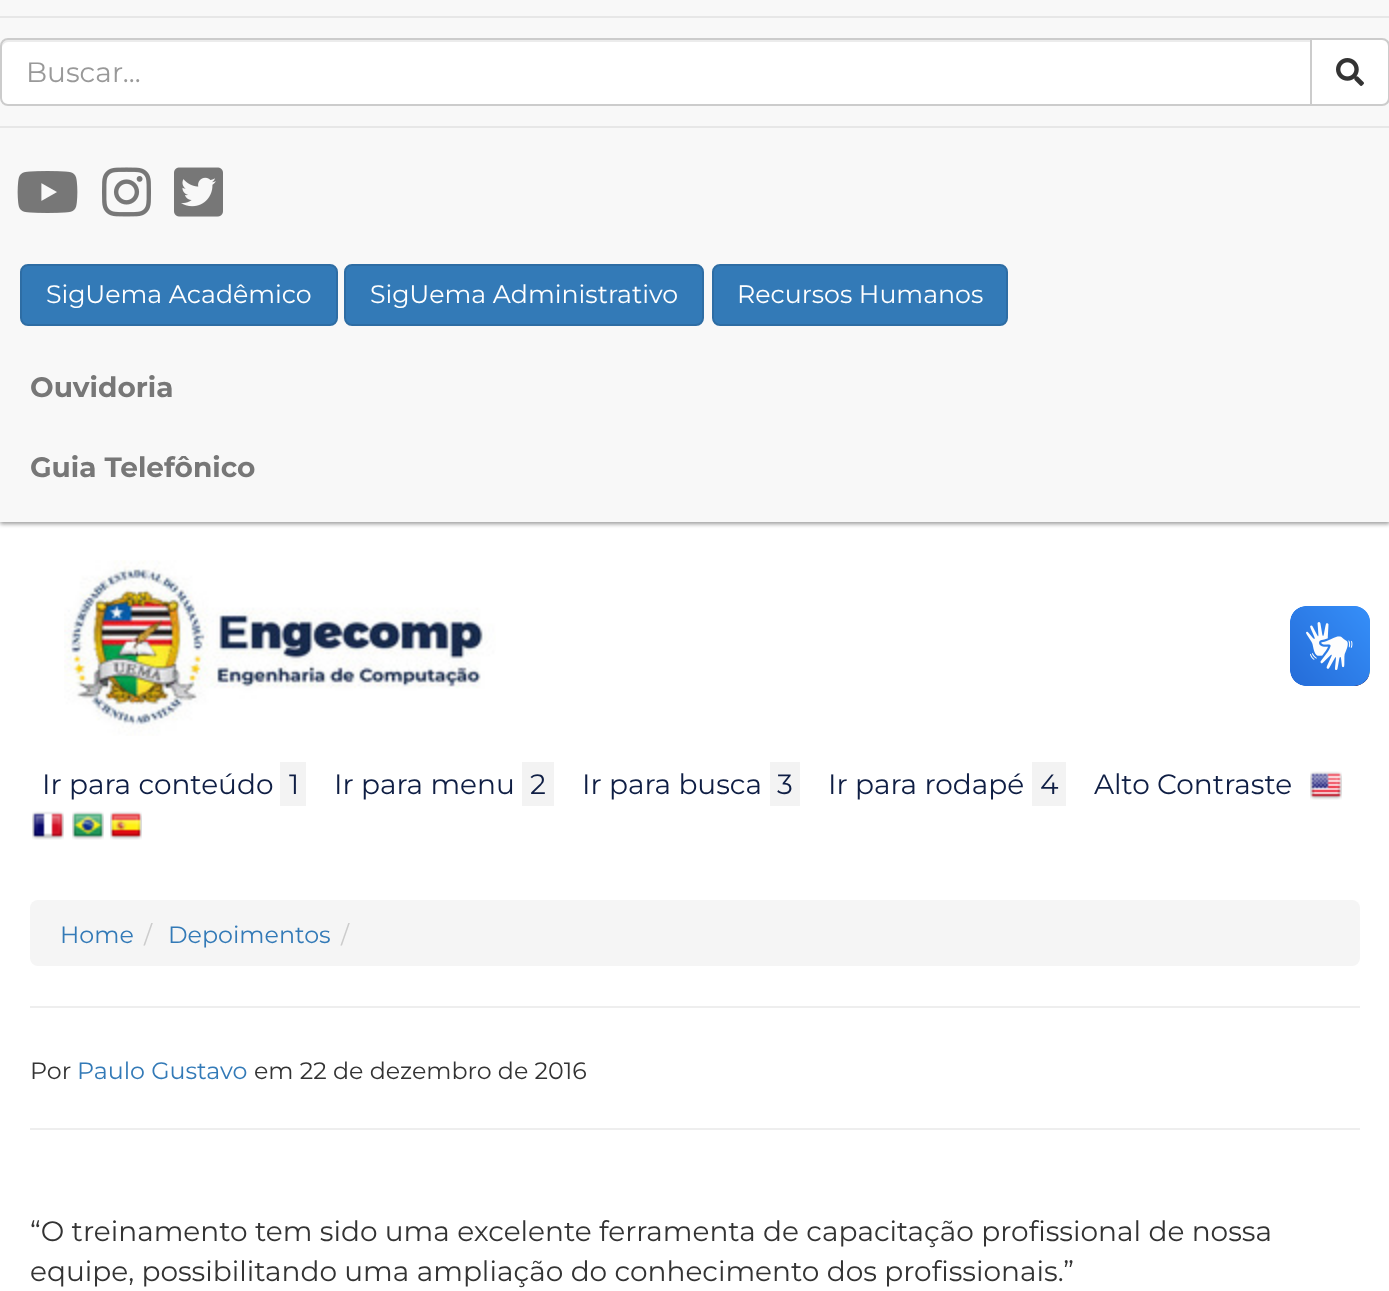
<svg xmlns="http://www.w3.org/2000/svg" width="1389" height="1291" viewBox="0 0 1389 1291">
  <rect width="100%" height="100%" fill="#fff"/>
  <path d="M0 2h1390v522H0z" fill="#646464a6" filter="blur(2px)"/>
  <path d="M0 0h1389v522H0z" fill="#f8f8f8"/>
  <path d="M0 16h1389v2H0z" fill="#e7e7e7"/>
  <path d="M0 126h1389v2H0z" fill="#e7e7e7"/>
  <path d="M8 38H1312V106H8C3.5 106 0 102.5 0 98V46C0 41.5 3.5 38 8 38Z" fill="#fff"/>
  <path d="M8 42H1310V40H8C5 40 2 43 2 46V48C2 45 5 42 8 42Z" fill="#ececec"/>
  <path d="M8 39H1311V105H8C4 105 1 102 1 98V46C1 42 4 39 8 39Z" fill="none" stroke="#ccc" stroke-width="2"/>
  <path d="M1311 39H1382C1386 39 1389 42 1389 46V98C1389 102 1386 105 1382 105H1311Z" fill="#fff" stroke="#ccc" stroke-width="2"/>
  <image x="1336" y="58" width="28" height="28" href="img/1.png"/>
  <image x="17" y="171" width="61" height="42" href="img/2.png"/>
  <image x="102" y="167" width="49" height="50" href="img/3.png"/>
  <image x="174" y="167" width="49" height="50" href="img/4.png"/>
  <rect x="21" y="265" width="316" height="60" rx="7" fill="#337ab7" stroke="#2e6da4" stroke-width="2"/>
  <rect x="345" y="265" width="358" height="60" rx="7" fill="#337ab7" stroke="#2e6da4" stroke-width="2"/>
  <rect x="713" y="265" width="294" height="60" rx="7" fill="#337ab7" stroke="#2e6da4" stroke-width="2"/>
  <image x="64" y="560" width="432" height="176" href="img/5.png"/>
  <image x="1290" y="606" width="80" height="80" href="img/6.png"/>
  <image x="1290" y="606" width="80" height="80" href="img/7.png"/>
  <path d="M280 762h26v44H280z" fill="#f3f3f3"/>
  <path d="M522 762h32v44H522z" fill="#f3f3f3"/>
  <path d="M770 762h30v44H770z" fill="#f3f3f3"/>
  <path d="M1032 762h34v44H1032z" fill="#f3f3f3"/>
  <image x="1310" y="771" width="32" height="29" href="img/8.png"/>
  <image x="32" y="811" width="32" height="29" href="img/9.png"/>
  <image x="72" y="811" width="32" height="29" href="img/10.png"/>
  <image x="110" y="811" width="32" height="29" href="img/11.png"/>
  <rect x="30" y="900" width="1330" height="66" rx="8" fill="#f5f5f5"/>
  <path d="M30 1006h1330v2H30z" fill="#eee"/>
  <path d="M30 1128h1330v2H30z" fill="#eee"/>
  <text x="26" y="82" font-family="Montserrat" font-size="28" fill="#999">Buscar...</text>
  <g font-family="Montserrat" font-size="25.25" fill="#fff">
    <text x="46" y="303">SigUema Acadêmico</text>
    <text x="370" y="303">SigUema Administrativo</text>
    <text x="737" y="303">Recursos Humanos</text>
  </g>
  <g font-family="Montserrat" font-size="28" font-weight="bold" fill="#777">
    <text x="30" y="397">Ouvidoria</text>
    <text x="30" y="477">Guia Telefônico</text>
  </g>
  <g font-family="Montserrat" font-size="28" fill="#0f1e44">
    <text x="42" y="794">Ir para conteúdo</text>
    <text x="289" y="794">1</text>
    <text x="334" y="794">Ir para menu</text>
    <text x="530" y="794">2</text>
    <text x="582" y="794">Ir para busca</text>
    <text x="777" y="794">3</text>
    <text x="828" y="794">Ir para rodapé</text>
    <text x="1040" y="794">4</text>
    <text x="1094" y="794">Alto Contraste</text>
  </g>
  <text x="60" y="943" font-family="Montserrat" font-size="23.75" fill="#337ab7">Home</text>
  <text x="144" y="943" font-family="Montserrat" font-size="23.75" fill="#ccc">/</text>
  <text x="168" y="943" font-family="Montserrat" font-size="23.75" fill="#337ab7">Depoimentos</text>
  <text x="341" y="943" font-family="Montserrat" font-size="23.75" fill="#ccc">/</text>
  <text x="30" y="1079" font-family="Montserrat" font-size="23.75" fill="#333">Por</text>
  <text x="77" y="1079" font-family="Montserrat" font-size="23.75" fill="#337ab7">Paulo Gustavo</text>
  <text x="254" y="1079" font-family="Montserrat" font-size="23.75" fill="#333">em 22 de dezembro de 2016</text>
  <g font-family="Montserrat" font-size="28" fill="#333">
    <text x="30" y="1241">“O treinamento tem sido uma excelente ferramenta de capacitação profissional de nossa</text>
    <text x="30" y="1281">equipe, possibilitando uma ampliação do conhecimento dos profissionais.”</text>
  </g>
</svg>
